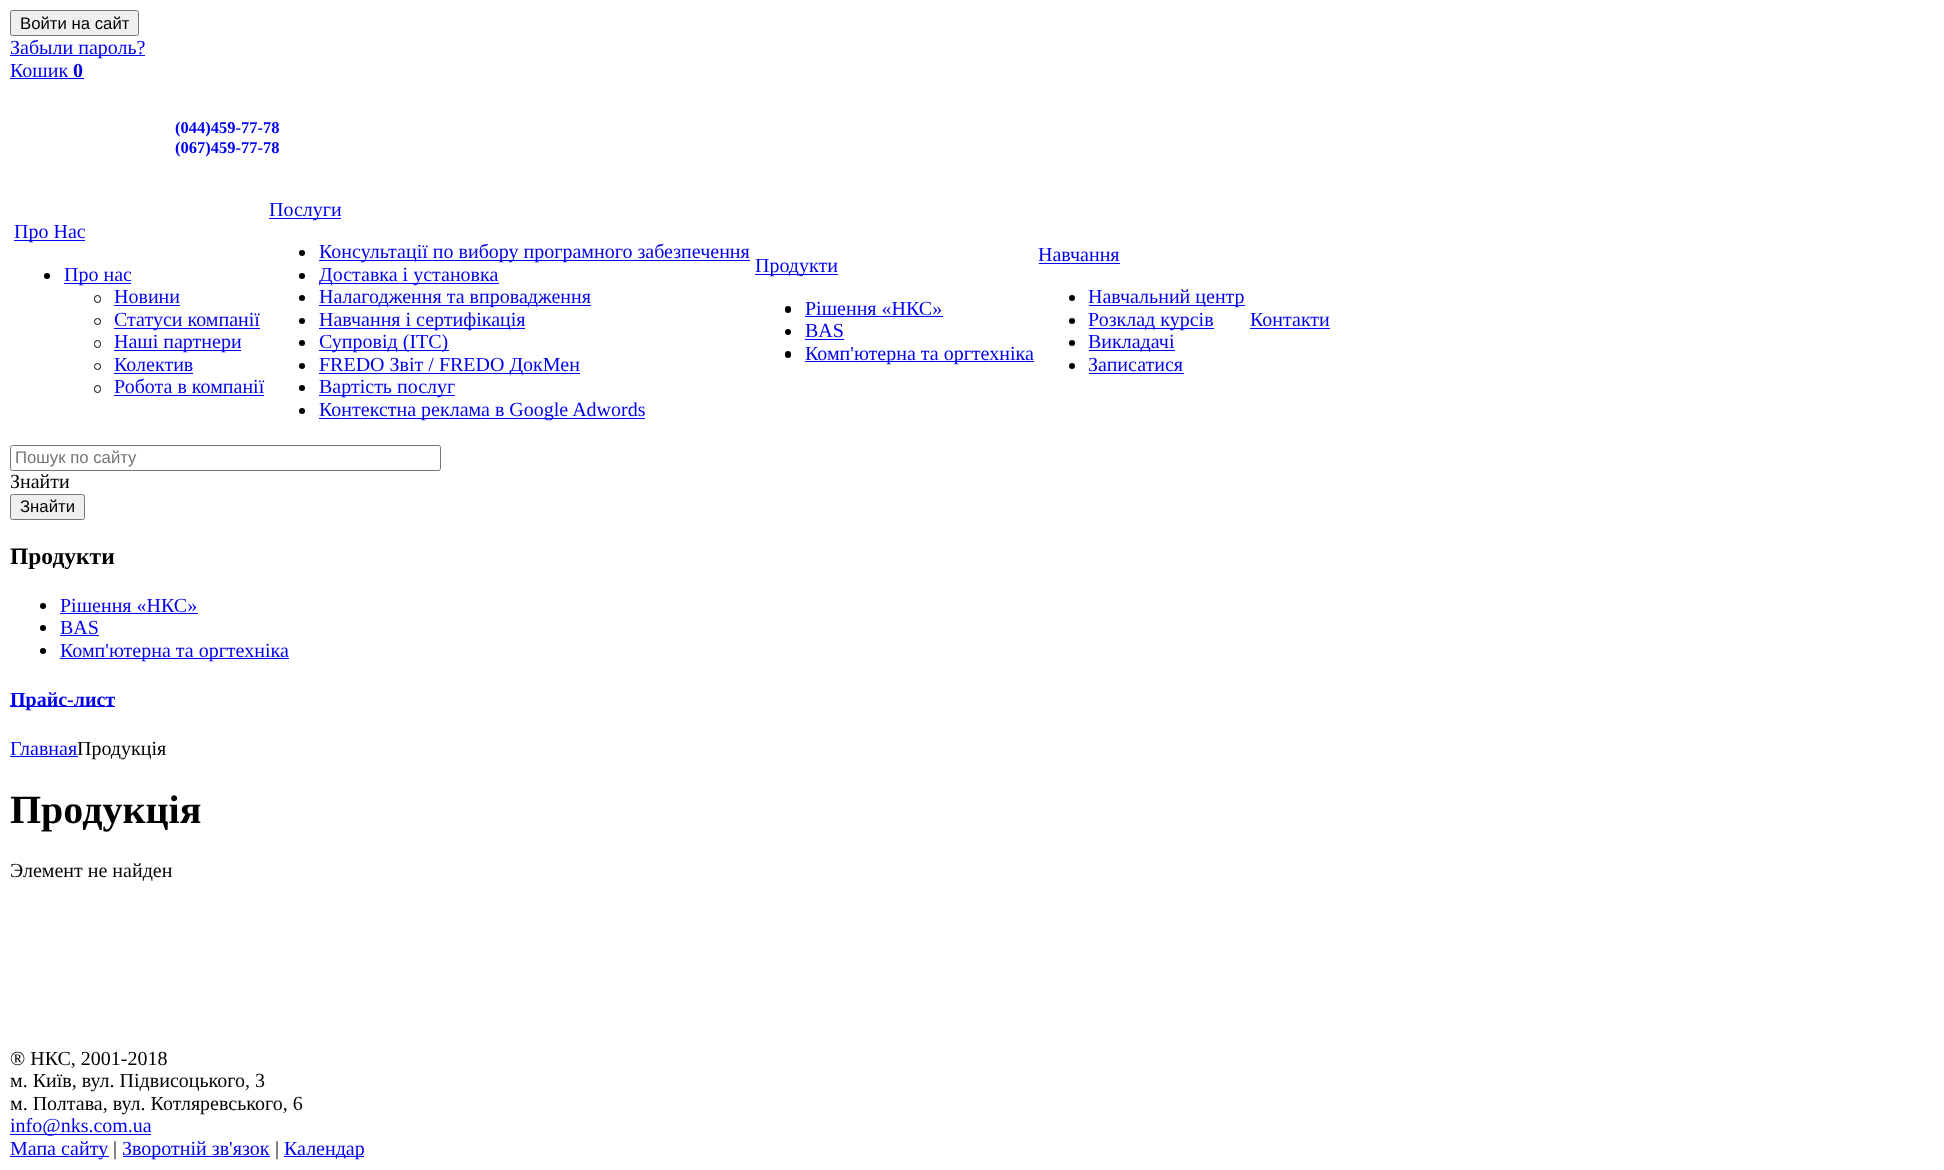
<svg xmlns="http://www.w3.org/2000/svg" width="1944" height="1170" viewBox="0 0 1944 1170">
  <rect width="100%" height="100%" fill="#fff"/>
  <rect x="10.5" y="10.5" width="128" height="25" rx="2" fill="#efefef" stroke="#767676"/>
  <path d="M10 55h135v1H10z" fill="#00e"/>
  <path d="M10 78h74v1H10z" fill="#00e"/>
  <path d="M14 240h71v1H14z" fill="#00e"/>
  <circle cx="47" cy="276" r="3" fill="#000"/>
  <path d="M64 283h67v1H64z" fill="#00e"/>
  <rect x="94.5" y="295.5" width="6" height="7" rx="3" fill="none" stroke="#000"/>
  <path d="M114 305h66v1H114z" fill="#00e"/>
  <circle cx="97.5" cy="321.5" r="3" fill="none" stroke="#000"/>
  <path d="M114 328h146v1H114z" fill="#00e"/>
  <rect x="94.5" y="340.5" width="6" height="7" rx="3" fill="none" stroke="#000"/>
  <path d="M114 350h127v1H114z" fill="#00e"/>
  <circle cx="97.5" cy="366.5" r="3" fill="none" stroke="#000"/>
  <path d="M114 373h79v1H114z" fill="#00e"/>
  <rect x="94.5" y="385.5" width="6" height="7" rx="3" fill="none" stroke="#000"/>
  <path d="M114 395h150v1H114z" fill="#00e"/>
  <path d="M269 218h72v1H269z" fill="#00e"/>
  <circle cx="302" cy="253" r="3" fill="#000"/>
  <path d="M319 260h431v1H319z" fill="#00e"/>
  <circle cx="302" cy="276" r="3" fill="#000"/>
  <path d="M319 283h180v1H319z" fill="#00e"/>
  <circle cx="302" cy="298" r="3" fill="#000"/>
  <path d="M319 305h272v1H319z" fill="#00e"/>
  <circle cx="302" cy="321" r="3" fill="#000"/>
  <path d="M319 328h206v1H319z" fill="#00e"/>
  <circle cx="302" cy="343" r="3" fill="#000"/>
  <path d="M319 350h130v1H319z" fill="#00e"/>
  <circle cx="302" cy="366" r="3" fill="#000"/>
  <path d="M319 373h261v1H319z" fill="#00e"/>
  <circle cx="302" cy="388" r="3" fill="#000"/>
  <path d="M319 395h136v1H319z" fill="#00e"/>
  <circle cx="302" cy="411" r="3" fill="#000"/>
  <path d="M319 418h326v1H319z" fill="#00e"/>
  <path d="M755 274h83v1H755z" fill="#00e"/>
  <rect x="785" y="306" width="6" height="7" rx="3" fill="#000"/>
  <path d="M805 316h138v1H805z" fill="#00e"/>
  <circle cx="788" cy="332" r="3" fill="#000"/>
  <path d="M805 339h39v1H805z" fill="#00e"/>
  <rect x="785" y="351" width="6" height="7" rx="3" fill="#000"/>
  <path d="M805 361h229v1H805z" fill="#00e"/>
  <path d="M1039 263h81v1H1039z" fill="#00e"/>
  <circle cx="1072" cy="298" r="3" fill="#000"/>
  <path d="M1089 305h156v1H1089z" fill="#00e"/>
  <circle cx="1072" cy="321" r="3" fill="#000"/>
  <path d="M1089 328h125v1H1089z" fill="#00e"/>
  <circle cx="1072" cy="343" r="3" fill="#000"/>
  <path d="M1089 350h86v1H1089z" fill="#00e"/>
  <circle cx="1072" cy="366" r="3" fill="#000"/>
  <path d="M1089 373h95v1H1089z" fill="#00e"/>
  <path d="M1250 328h80v1H1250z" fill="#00e"/>
  <rect x="10.5" y="445.5" width="430" height="25" rx="2" fill="none" stroke="#767676"/>
  <rect x="10.5" y="494.5" width="74" height="25" rx="2" fill="#efefef" stroke="#767676"/>
  <circle cx="43" cy="606" r="3" fill="#000"/>
  <path d="M60 613h138v1H60z" fill="#00e"/>
  <circle cx="43" cy="628" r="3" fill="#000"/>
  <path d="M60 635h39v1H60z" fill="#00e"/>
  <circle cx="43" cy="651" r="3" fill="#000"/>
  <path d="M60 658h229v1H60z" fill="#00e"/>
  <path d="M10 706h105v1H10z" fill="#00e"/>
  <path d="M10 756h68v1H10z" fill="#00e"/>
  <path d="M10 1134h141v1H10z" fill="#00e"/>
  <path d="M10 1156h99v1H10z" fill="#00e"/>
  <path d="M123 1156h147v1H123z" fill="#00e"/>
  <path d="M284 1156h80v1H284z" fill="#00e"/>
  <text x="20" y="29" font-family="Liberation Sans" font-size="16.75" fill="#000">Войти на сайт</text>
  <g font-family="Liberation Serif" font-size="20" fill="#00e">
    <text x="10" y="54">Забыли пароль?</text>
    <text x="10" y="77">Кошик</text>
  </g>
  <text x="73" y="77" font-family="Liberation Serif" font-size="20" font-weight="bold" fill="#00e">0</text>
  <g font-family="Liberation Serif" font-size="16.5" font-weight="bold" fill="#00e">
    <text x="175" y="133">(044)459-77-78</text>
    <text x="175" y="153">(067)459-77-78</text>
  </g>
  <g font-family="Liberation Serif" font-size="20" fill="#00e">
    <text x="14" y="238">Про Нас</text>
    <text x="64" y="281">Про нас</text>
    <text x="114" y="303">Новини</text>
    <text x="114" y="326">Статуси компанії</text>
    <text x="114" y="348">Наші партнери</text>
    <text x="114" y="371">Колектив</text>
    <text x="114" y="393">Робота в компанії</text>
    <text x="269" y="216">Послуги</text>
    <text x="319" y="258">Консультації по вибору програмного забезпечення</text>
    <text x="319" y="281">Доставка і установка</text>
    <text x="319" y="303">Налагодження та впровадження</text>
    <text x="319" y="326">Навчання і сертифікація</text>
    <text x="319" y="348">Супровід (ІТС)</text>
    <text x="319" y="371">FREDO Звіт / FREDO ДокМен</text>
    <text x="319" y="393">Вартість послуг</text>
    <text x="319" y="416">Контекстна реклама в Google Adwords</text>
    <text x="755" y="272">Продукти</text>
    <text x="805" y="315">Рішення «НКС»</text>
    <text x="805" y="337">BAS</text>
    <text x="805" y="360">Комп'ютерна та оргтехніка</text>
    <text x="1038" y="261">Навчання</text>
    <text x="1088" y="303">Навчальний центр</text>
    <text x="1088" y="326">Розклад курсів</text>
    <text x="1088" y="348">Викладачі</text>
    <text x="1088" y="371">Записатися</text>
    <text x="1250" y="326">Контакти</text>
  </g>
  <text x="15" y="463" font-family="Liberation Sans" font-size="16.75" fill="#757575">Пошук по сайту</text>
  <text x="10" y="488" font-family="Liberation Serif" font-size="20" fill="#000">Знайти</text>
  <text x="20" y="512" font-family="Liberation Sans" font-size="16.75" fill="#000">Знайти</text>
  <text x="10" y="564" font-family="Liberation Serif" font-size="23.5" font-weight="bold" fill="#000">Продукти</text>
  <g font-family="Liberation Serif" font-size="20" fill="#00e">
    <text x="60" y="612">Рішення «НКС»</text>
    <text x="60" y="634">BAS</text>
    <text x="60" y="657">Комп'ютерна та оргтехніка</text>
  </g>
  <text x="10" y="706" font-family="Liberation Serif" font-size="20" font-weight="bold" fill="#00e">Прайс-лист</text>
  <text x="10" y="755" font-family="Liberation Serif" font-size="20" fill="#00e">Главная</text>
  <text x="77" y="755" font-family="Liberation Serif" font-size="20" fill="#000">Продукція</text>
  <text x="10" y="823" font-family="Liberation Serif" font-size="40" font-weight="bold" fill="#000">Продукція</text>
  <g font-family="Liberation Serif" font-size="20" fill="#000">
    <text x="10" y="877">Элемент не найден</text>
    <text x="10" y="1065">® НКС, 2001-2018</text>
    <text x="10" y="1087">м. Київ, вул. Підвисоцького, 3</text>
    <text x="10" y="1110">м. Полтава, вул. Котляревського, 6</text>
  </g>
  <g font-family="Liberation Serif" font-size="20" fill="#00e">
    <text x="10" y="1132">info@nks.com.ua</text>
    <text x="10" y="1155">Мапа сайту</text>
  </g>
  <text x="113" y="1155" font-family="Liberation Serif" font-size="20" fill="#000">|</text>
  <text x="122" y="1155" font-family="Liberation Serif" font-size="20" fill="#00e">Зворотній зв'язок</text>
  <text x="275" y="1155" font-family="Liberation Serif" font-size="20" fill="#000">|</text>
  <text x="284" y="1155" font-family="Liberation Serif" font-size="20" fill="#00e">Календар</text>
</svg>
